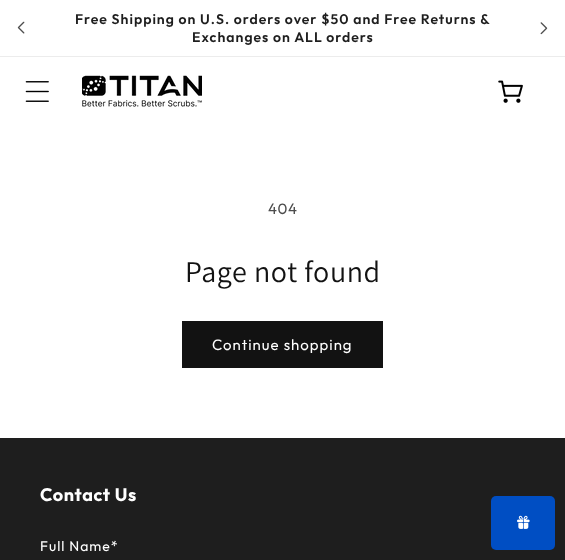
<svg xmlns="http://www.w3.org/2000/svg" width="565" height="560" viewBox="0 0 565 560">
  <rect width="100%" height="100%" fill="#fff"/>
  <path d="M0 56h565v1H0z" fill="#ececec"/>
  <image x="17" y="21" width="8" height="13" href="img/1.png"/>
  <image x="540" y="22" width="8" height="13" href="img/2.png"/>
  <image x="25" y="81" width="24" height="21" href="img/3.png"/>
  <image x="82" y="75" width="120" height="32" href="img/4.png"/>
  <image x="498" y="80" width="25" height="23" href="img/5.png"/>
  <path d="M182 321h201v47H182z" fill="#121212"/>
  <path d="M0 438h565v122H0z" fill="#1e1e1e"/>
  <rect x="491" y="496" width="64" height="54" rx="5" fill="#004ec3"/>
  <image x="517" y="515" width="13" height="14" href="img/6.png"/>
  <g font-family="Outfit" font-size="14" font-weight="600" letter-spacing="1" fill="#1e1e1e">
    <text x="75" y="24">Free Shipping on U.S. orders over $50 and Free Returns &amp;</text>
    <text x="192" y="42">Exchanges on ALL orders</text>
  </g>
  <text x="268" y="214" font-family="Outfit" font-size="15" letter-spacing="0.6" fill="#4d4d4d">404</text>
  <text x="185" y="282" font-family="Assistant" font-size="30" letter-spacing="0.6" fill="#121212">Page not found</text>
  <text x="212" y="350" font-family="Outfit" font-size="15" letter-spacing="1" fill="#fff">Continue shopping</text>
  <text x="40" y="501" font-family="Outfit" font-size="18" font-weight="bold" letter-spacing="0.6" fill="#fff">Contact Us</text>
  <text x="40" y="551" font-family="Outfit" font-size="14" letter-spacing="1" fill="#fff">Full Name*</text>
</svg>
